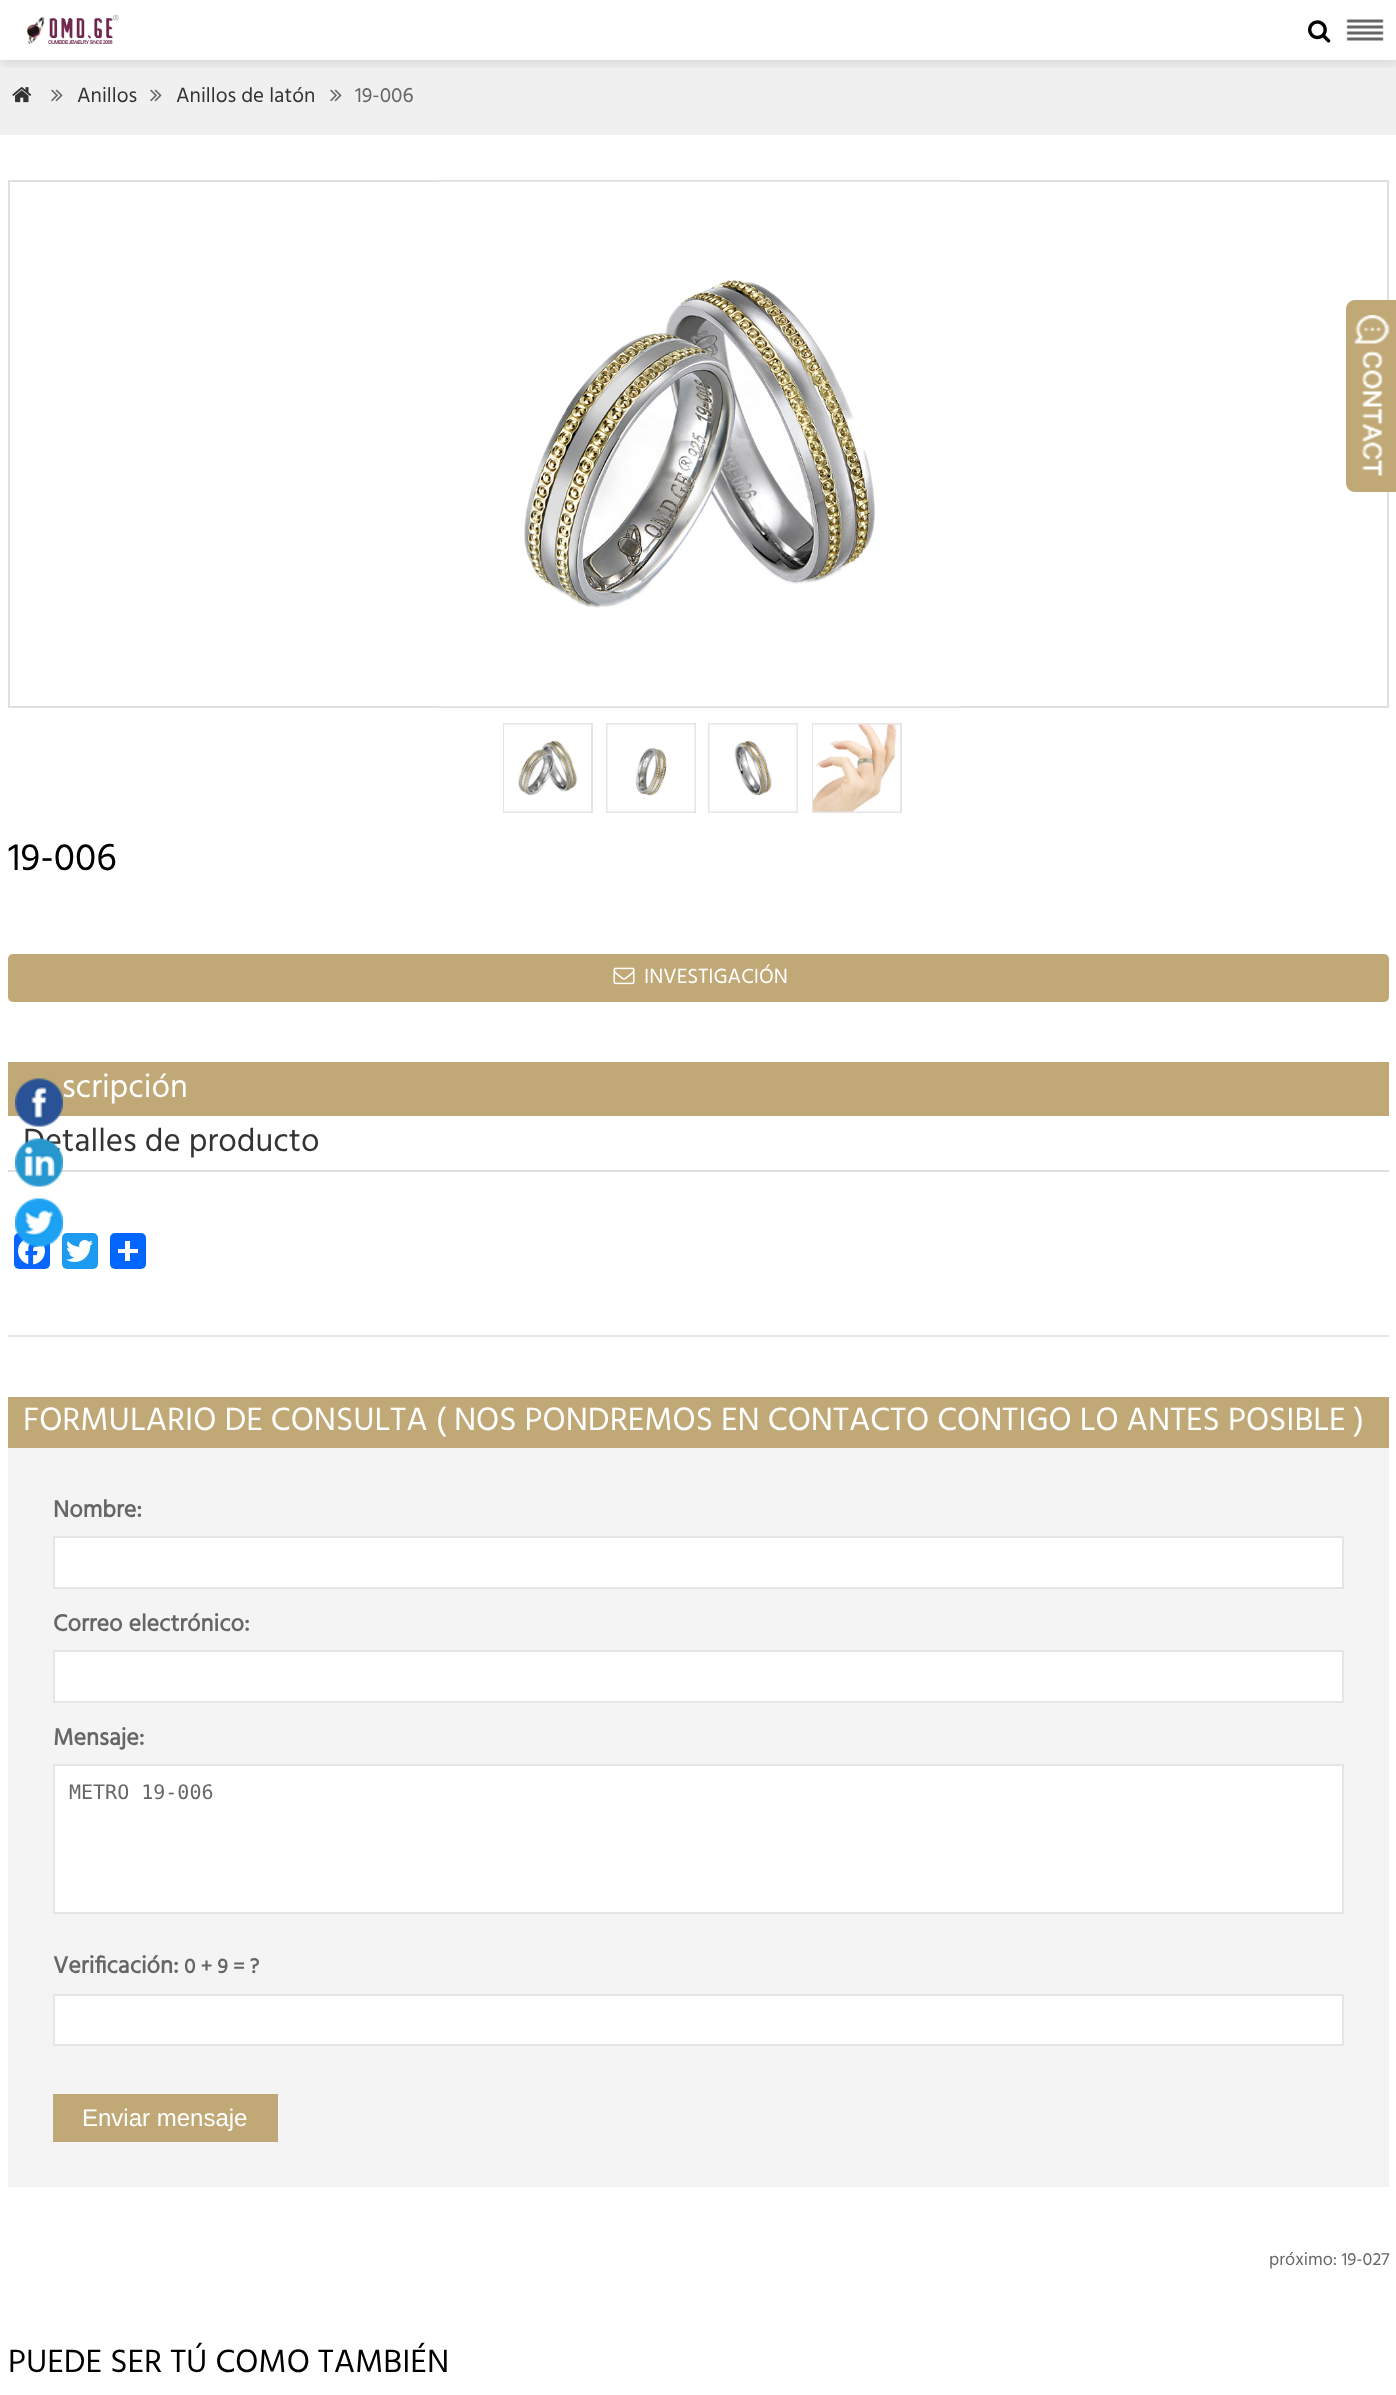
<svg xmlns="http://www.w3.org/2000/svg" width="1396" height="2395" viewBox="0 0 1396 2395">
  <defs>
    <clipPath id="clip1"><path d="M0 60h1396v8H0z"/></clipPath>
  </defs>
  <rect width="100%" height="100%" fill="#fff"/>
  <path d="M0 60h1396v75H0z" fill="#f0f0f0"/>
  <g clip-path="url(#clip1)">
    <path d="M0 5h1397v60H0z" fill="#3333331a" filter="blur(4px)"/>
  </g>
  <image x="26" y="15" width="93" height="29" href="img/1.png"/>
  <image x="1308" y="20" width="23" height="23" href="img/2.png"/>
  <image x="1346" y="19" width="38" height="22" href="img/3.png"/>
  <image x="12" y="87" width="20" height="16" href="img/4.png"/>
  <image x="51" y="89" width="12" height="13" href="img/5.png"/>
  <image x="150" y="89" width="12" height="13" href="img/5.png"/>
  <image x="330" y="89" width="12" height="13" href="img/5.png"/>
  <path d="M9 181h1379v526H9z" fill="none" stroke="#e0e0e0" stroke-width="2"/>
  <image x="437" y="181" width="524" height="526" href="img/6.png"/>
  <path d="M504 724h88v88H504z" fill="none" stroke="#e5e5e5" stroke-width="2"/>
  <image x="504" y="724" width="87" height="88" href="img/7.png"/>
  <path d="M607 724h88v88H607z" fill="none" stroke="#e5e5e5" stroke-width="2"/>
  <image x="607" y="724" width="88" height="88" href="img/8.png"/>
  <path d="M709 724h88v88H709z" fill="none" stroke="#e5e5e5" stroke-width="2"/>
  <image x="709" y="724" width="88" height="88" href="img/9.png"/>
  <path d="M813 724h88v88H813z" fill="none" stroke="#e5e5e5" stroke-width="2"/>
  <image x="813" y="724" width="87" height="88" href="img/10.png"/>
  <rect x="8" y="954" width="1381" height="48" rx="5" fill="#c0a977"/>
  <image x="613" y="967" width="22" height="18" href="img/11.png"/>
  <path d="M8 1170h1381v2H8z" fill="#e0e0e0"/>
  <path d="M8 1062h1381v54H8z" fill="#c0a977"/>
  <rect x="14" y="1233" width="36" height="36" rx="5" fill="#0866ff"/>
  <image x="18" y="1239" width="27" height="26" href="img/12.png"/>
  <rect x="62" y="1233" width="36" height="36" rx="5" fill="#1d9bf0"/>
  <image x="66" y="1240" width="27" height="22" href="img/13.png"/>
  <rect x="110" y="1233" width="36" height="36" rx="5" fill="#0166ff"/>
  <path d="M125 1241h5v20H125z" fill="#fff"/>
  <path d="M118 1249h20v4H118z" fill="#fff"/>
  <path d="M8 1335h1381v2H8z" fill="#e7e7e7"/>
  <path d="M8 1397h1381v51H8z" fill="#c0a977"/>
  <path d="M8 1448h1381v739H8z" fill="#f4f4f4"/>
  <path d="M54 1537h1289v51H54z" fill="#fff" stroke="#e5e5e5" stroke-width="2"/>
  <path d="M54 1651h1289v51H54z" fill="#fff" stroke="#e5e5e5" stroke-width="2"/>
  <path d="M54 1765h1289v148H54z" fill="#fff" stroke="#e5e5e5" stroke-width="2"/>
  <path d="M54 1995h1289v50H54z" fill="#fff" stroke="#e5e5e5" stroke-width="2"/>
  <path d="M53 2094h225v48H53z" fill="#c0a977"/>
  <path d="M1355 300H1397V492H1355C1350 492 1346 488 1346 483V309C1346 304 1350 300 1355 300Z" fill="#c0a977"/>
  <image x="1354" y="315" width="36" height="162" href="img/14.png"/>
  <image x="15" y="1078" width="48" height="49" href="img/15.png"/>
  <image x="15" y="1198" width="48" height="49" href="img/17.png"/>
  <g font-family="Hind" font-size="21" fill="#333">
    <text x="77" y="102">Anillos</text>
    <text x="176" y="102">Anillos de latón</text>
  </g>
  <text x="355" y="102" font-family="Hind" font-size="21" fill="#666">19-006</text>
  <text x="8" y="870" font-family="Hind" font-size="39" fill="#000">19-006</text>
  <text x="644" y="983" font-family="Hind" font-size="21" fill="#fff">INVESTIGACIÓN</text>
  <text x="62" y="1097" font-family="Hind" font-size="33" fill="#fff">scripción</text>
  <text x="23" y="1151" font-family="Hind" font-size="33" fill="#333">Detalles de producto</text>
  <text x="23" y="1430" font-family="Hind" font-size="33" fill="#fff">FORMULARIO DE CONSULTA ( NOS PONDREMOS EN CONTACTO CONTIGO LO ANTES POSIBLE )</text>
  <g font-family="Hind" font-size="24" font-weight="bold" fill="#666">
    <text x="53" y="1517">Nombre:</text>
    <text x="53" y="1631">Correo electrónico:</text>
    <text x="53" y="1745">Mensaje:</text>
  </g>
  <text x="69" y="1799" font-family="DejaVu Sans Mono" font-size="20" fill="#666">METRO 19-006</text>
  <text x="53" y="1973" font-family="Hind" font-size="24" font-weight="bold" fill="#666">Verificación:</text>
  <text x="184" y="1973" font-family="Hind" font-size="21" font-weight="bold" fill="#666">0 + 9 = ?</text>
  <text x="82" y="2126" font-family="Liberation Sans" font-size="24" fill="#fff">Enviar mensaje</text>
  <text x="1269" y="2265" font-family="Hind" font-size="18" fill="#666">próximo: 19-027</text>
  <text x="8" y="2372" font-family="Hind" font-size="33" fill="#000">PUEDE SER TÚ COMO TAMBIÉN</text>
  <image x="15" y="1138" width="48" height="49" href="img/16.png"/>
</svg>
